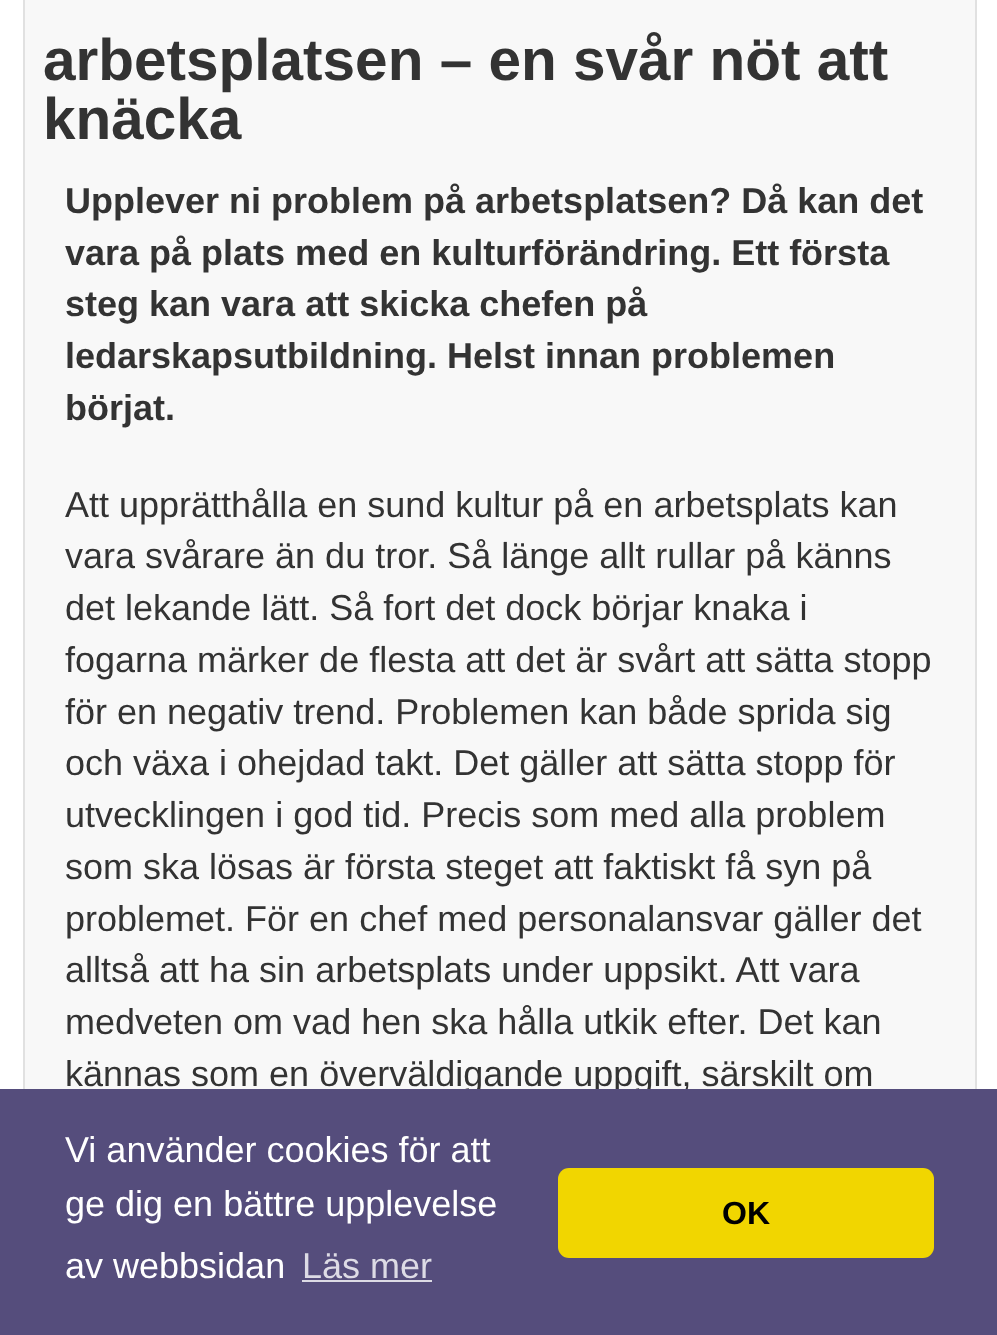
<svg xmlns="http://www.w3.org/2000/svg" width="997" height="1335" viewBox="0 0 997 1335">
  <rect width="100%" height="100%" fill="#fff"/>
  <path d="M25 0h950v1089H25z" fill="#f8f8f8"/>
  <path d="M24 -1h952v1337H24z" fill="none" stroke="#e1e1e1" stroke-width="2"/>
  <g font-family="Liberation Sans" font-size="58.5" font-weight="bold" fill="#333">
    <text x="43" y="80">arbetsplatsen – en svår nöt att</text>
    <text x="43" y="139">knäcka</text>
  </g>
  <g font-family="Liberation Sans" font-size="36" font-weight="bold" fill="#333">
    <text x="65" y="213">Upplever ni problem på arbetsplatsen? Då kan det</text>
    <text x="65" y="265">vara på plats med en kulturförändring. Ett första</text>
    <text x="65" y="316">steg kan vara att skicka chefen på</text>
    <text x="65" y="368">ledarskapsutbildning. Helst innan problemen</text>
    <text x="65" y="420">börjat.</text>
  </g>
  <g font-family="Liberation Sans" font-size="36" fill="#333">
    <text x="65" y="517">Att upprätthålla en sund kultur på en arbetsplats kan</text>
    <text x="65" y="568">vara svårare än du tror. Så länge allt rullar på känns</text>
    <text x="65" y="620">det lekande lätt. Så fort det dock börjar knaka i</text>
    <text x="65" y="672">fogarna märker de flesta att det är svårt att sätta stopp</text>
    <text x="65" y="724">för en negativ trend. Problemen kan både sprida sig</text>
    <text x="65" y="775">och växa i ohejdad takt. Det gäller att sätta stopp för</text>
    <text x="65" y="827">utvecklingen i god tid. Precis som med alla problem</text>
    <text x="65" y="879">som ska lösas är första steget att faktiskt få syn på</text>
    <text x="65" y="931">problemet. För en chef med personalansvar gäller det</text>
    <text x="65" y="982">alltså att ha sin arbetsplats under uppsikt. Att vara</text>
    <text x="65" y="1034">medveten om vad hen ska hålla utkik efter. Det kan</text>
    <text x="65" y="1086">kännas som en överväldigande uppgift, särskilt om</text>
  </g>
  <path d="M0 1089h997v246H0z" fill="#554d7c"/>
  <g font-family="Liberation Sans" font-size="36" fill="#fff">
    <text x="65" y="1162">Vi använder cookies för att</text>
    <text x="65" y="1216">ge dig en bättre upplevelse</text>
    <text x="65" y="1278">av webbsidan</text>
  </g>
  <text x="302" y="1278" font-family="Liberation Sans" font-size="36" fill="#dddbe5">Läs mer</text>
  <path d="M302 1280h130v2H302z" fill="#dddbe5"/>
  <rect x="558" y="1168" width="376" height="90" rx="11" fill="#f1d600"/>
  <text x="722" y="1224" font-family="Liberation Sans" font-size="32" font-weight="bold" fill="#000">OK</text>
</svg>
